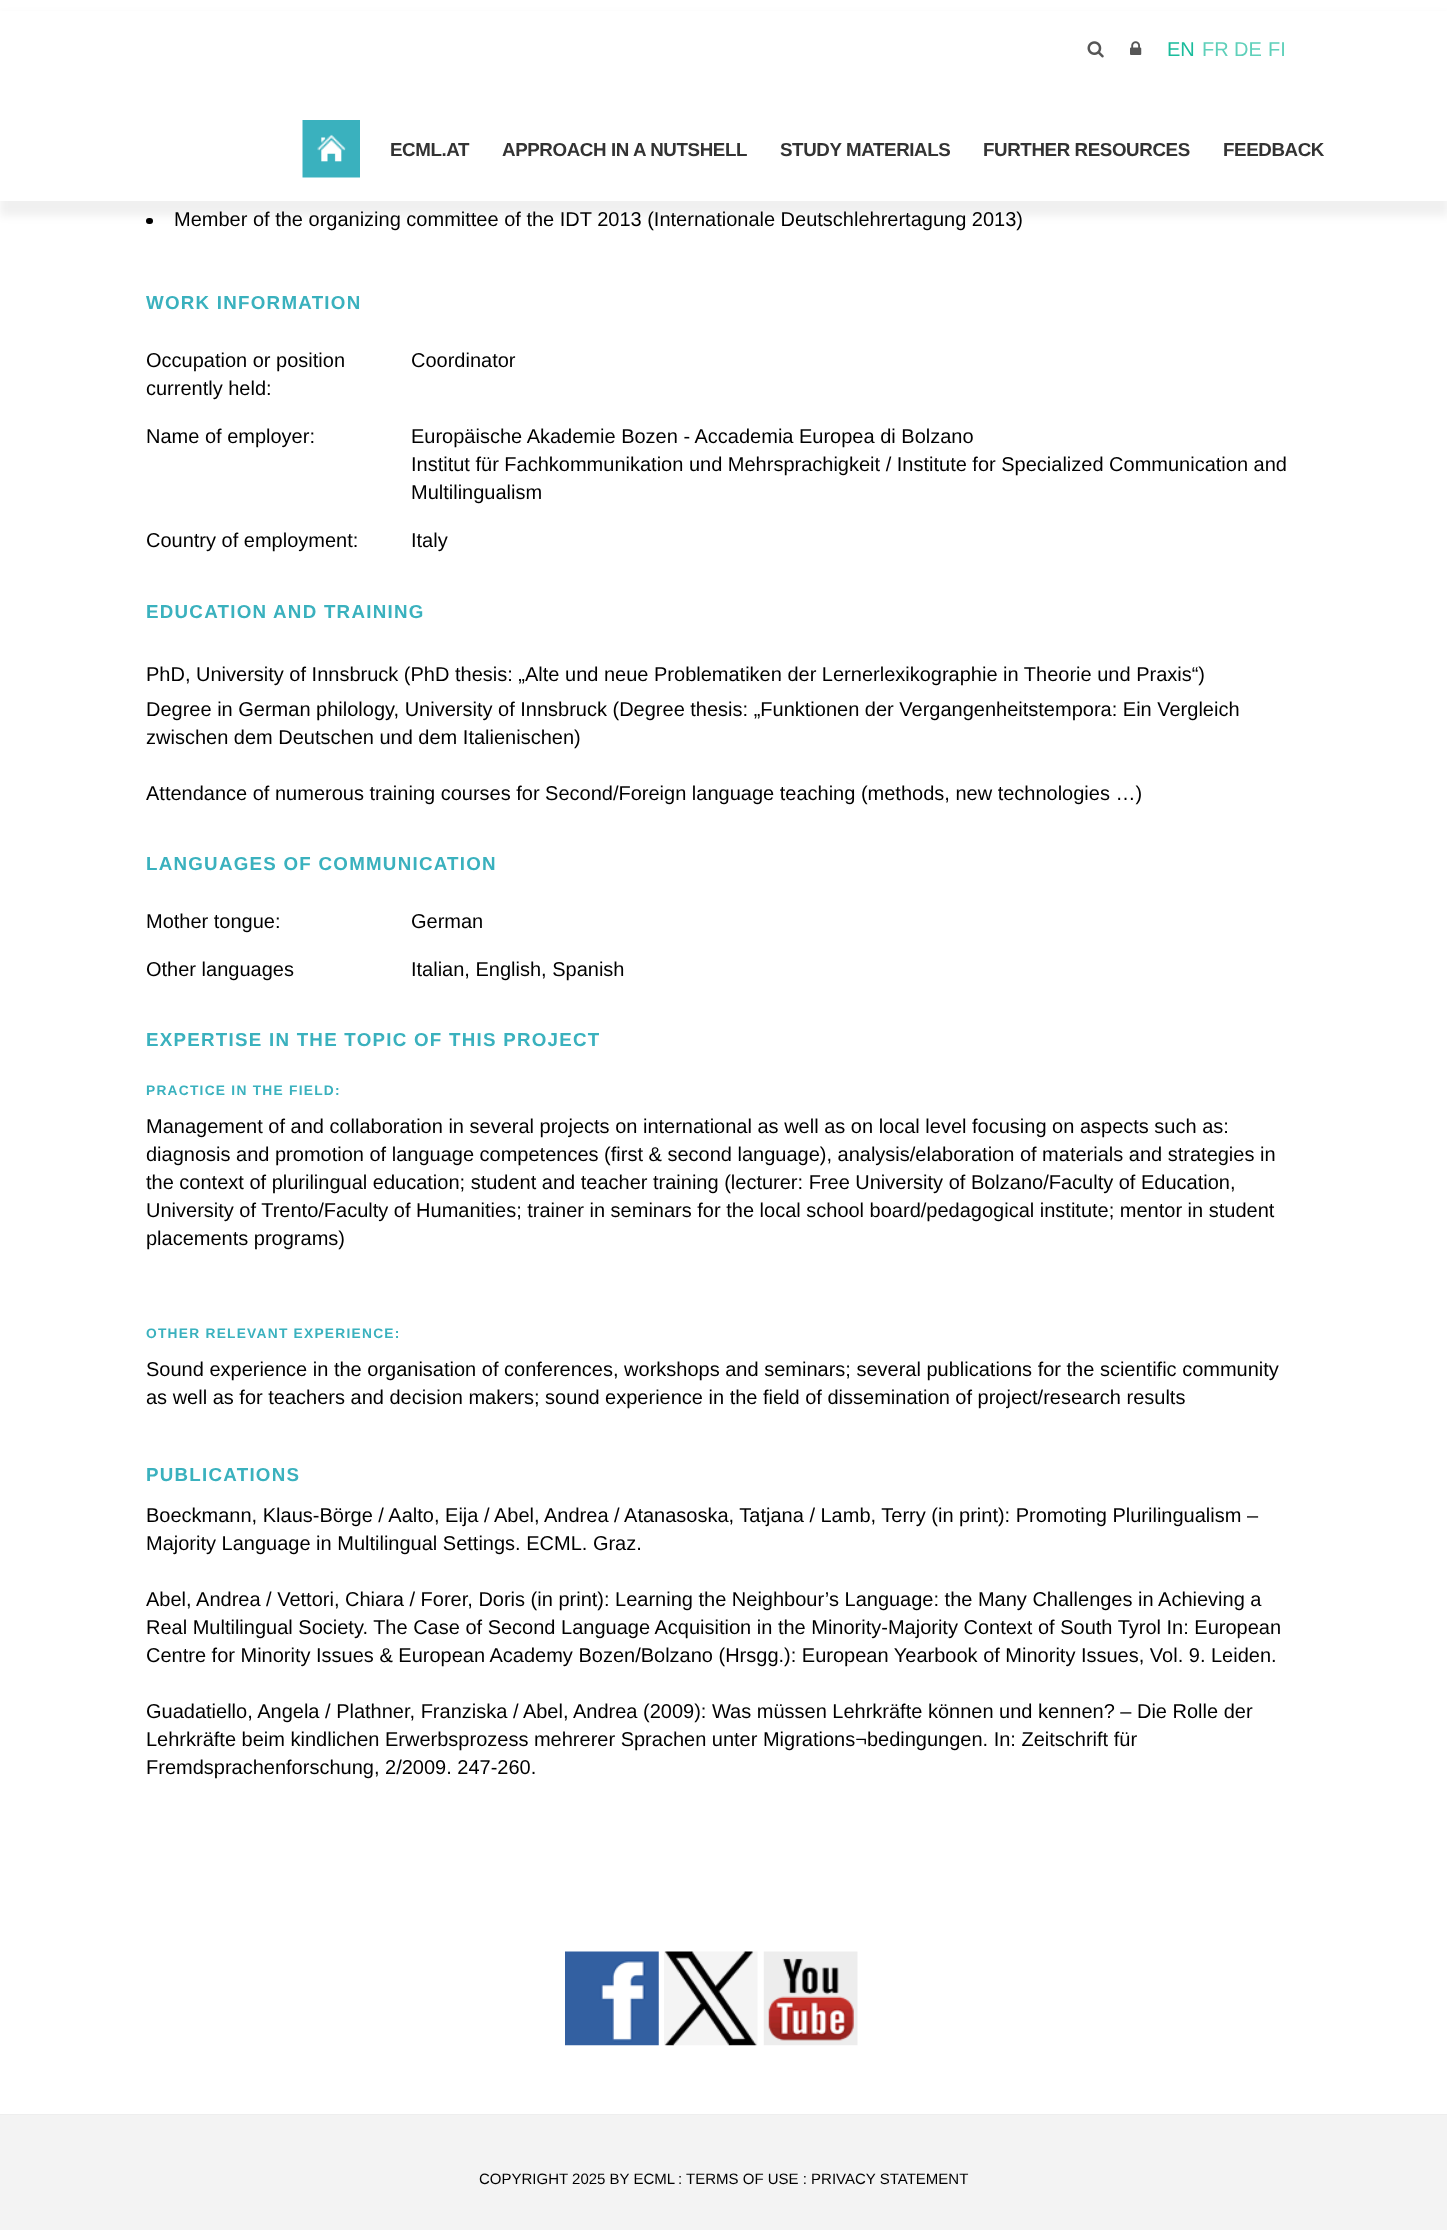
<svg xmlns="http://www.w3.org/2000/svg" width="1447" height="2230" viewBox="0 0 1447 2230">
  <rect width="100%" height="100%" fill="#fff"/>
  <rect x="146" y="218" width="7" height="6" rx="3" fill="#000"/>
  <path d="M0 15h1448v201H0z" fill="#0000000f" filter="blur(4px)"/>
  <path d="M0 11h1447v190H0z" fill="#fff"/>
  <image x="1087" y="41" width="17" height="17" href="img/1.png"/>
  <image x="1130" y="41" width="12" height="14" href="img/2.png"/>
  <image x="302" y="120" width="58" height="58" href="img/3.png"/>
  <image x="565" y="1951" width="94" height="95" href="img/4.png"/>
  <image x="664" y="1951" width="94" height="95" href="img/5.png"/>
  <image x="763" y="1951" width="95" height="95" href="img/6.png"/>
  <path d="M0 2115h1447v115H0z" fill="#f3f3f3"/>
  <path d="M0 2114h1447v1H0z" fill="#eee"/>
  <text x="1167" y="56" font-family="Liberation Sans" font-size="20" fill="#1abc9c">EN</text>
  <g font-family="Liberation Sans" font-size="20" fill="#5fd0ba">
    <text x="1202" y="56">FR</text>
    <text x="1234" y="56">DE</text>
    <text x="1268" y="56">FI</text>
  </g>
  <g font-family="Liberation Sans" font-size="18.75" font-weight="bold" letter-spacing="-0.4" fill="#333">
    <text x="390" y="156">ECML.AT</text>
    <text x="502" y="156">APPROACH IN A NUTSHELL</text>
    <text x="780" y="156">STUDY MATERIALS</text>
    <text x="983" y="156">FURTHER RESOURCES</text>
    <text x="1223" y="156">FEEDBACK</text>
  </g>
  <text x="174" y="226" font-family="Liberation Sans" font-size="20" fill="#000">Member of the organizing committee of the IDT 2013 (Internationale Deutschlehrertagung 2013)</text>
  <text x="146" y="309" font-family="Liberation Sans" font-size="18.75" font-weight="bold" letter-spacing="1.25" fill="#3ab1be">WORK INFORMATION</text>
  <g font-family="Liberation Sans" font-size="20" fill="#000">
    <text x="146" y="367">Occupation or position</text>
    <text x="146" y="395">currently held:</text>
    <text x="411" y="367">Coordinator</text>
    <text x="146" y="443">Name of employer:</text>
    <text x="411" y="443">Europäische Akademie Bozen - Accademia Europea di Bolzano</text>
    <text x="411" y="471">Institut für Fachkommunikation und Mehrsprachigkeit / Institute for Specialized Communication and</text>
    <text x="411" y="499">Multilingualism</text>
    <text x="146" y="547">Country of employment:</text>
    <text x="411" y="547">Italy</text>
  </g>
  <text x="146" y="618" font-family="Liberation Sans" font-size="18.75" font-weight="bold" letter-spacing="1.25" fill="#3ab1be">EDUCATION AND TRAINING</text>
  <g font-family="Liberation Sans" font-size="20" fill="#000">
    <text x="146" y="681">PhD, University of Innsbruck (PhD thesis: „Alte und neue Problematiken der Lernerlexikographie in Theorie und Praxis“)</text>
    <text x="146" y="716">Degree in German philology, University of Innsbruck (Degree thesis: „Funktionen der Vergangenheitstempora: Ein Vergleich</text>
    <text x="146" y="744">zwischen dem Deutschen und dem Italienischen)</text>
    <text x="146" y="800">Attendance of numerous training courses for Second/Foreign language teaching (methods, new technologies …)</text>
  </g>
  <text x="146" y="870" font-family="Liberation Sans" font-size="18.75" font-weight="bold" letter-spacing="1.25" fill="#3ab1be">LANGUAGES OF COMMUNICATION</text>
  <g font-family="Liberation Sans" font-size="20" fill="#000">
    <text x="146" y="928">Mother tongue:</text>
    <text x="411" y="928">German</text>
    <text x="146" y="976">Other languages</text>
    <text x="411" y="976">Italian, English, Spanish</text>
  </g>
  <text x="146" y="1046" font-family="Liberation Sans" font-size="18.75" font-weight="bold" letter-spacing="1.25" fill="#3ab1be">EXPERTISE IN THE TOPIC OF THIS PROJECT</text>
  <text x="146" y="1095" font-family="Liberation Sans" font-size="13.75" font-weight="bold" letter-spacing="1.25" fill="#3ab1be">PRACTICE IN THE FIELD:</text>
  <g font-family="Liberation Sans" font-size="20" fill="#000">
    <text x="146" y="1133">Management of and collaboration in several projects on international as well as on local level focusing on aspects such as:</text>
    <text x="146" y="1161">diagnosis and promotion of language competences (first &amp; second language), analysis/elaboration of materials and strategies in</text>
    <text x="146" y="1189">the context of plurilingual education; student and teacher training (lecturer: Free University of Bolzano/Faculty of Education,</text>
    <text x="146" y="1217">University of Trento/Faculty of Humanities; trainer in seminars for the local school board/pedagogical institute; mentor in student</text>
    <text x="146" y="1245">placements programs)</text>
  </g>
  <text x="146" y="1338" font-family="Liberation Sans" font-size="13.75" font-weight="bold" letter-spacing="1.25" fill="#3ab1be">OTHER RELEVANT EXPERIENCE:</text>
  <g font-family="Liberation Sans" font-size="20" fill="#000">
    <text x="146" y="1376">Sound experience in the organisation of conferences, workshops and seminars; several publications for the scientific community</text>
    <text x="146" y="1404">as well as for teachers and decision makers; sound experience in the field of dissemination of project/research results</text>
  </g>
  <text x="146" y="1481" font-family="Liberation Sans" font-size="18.75" font-weight="bold" letter-spacing="1.25" fill="#3ab1be">PUBLICATIONS</text>
  <g font-family="Liberation Sans" font-size="20" fill="#000">
    <text x="146" y="1522">Boeckmann, Klaus-Börge / Aalto, Eija / Abel, Andrea / Atanasoska, Tatjana / Lamb, Terry (in print): Promoting Plurilingualism –</text>
    <text x="146" y="1550">Majority Language in Multilingual Settings. ECML. Graz.</text>
    <text x="146" y="1606">Abel, Andrea / Vettori, Chiara / Forer, Doris (in print): Learning the Neighbour’s Language: the Many Challenges in Achieving a</text>
    <text x="146" y="1634">Real Multilingual Society. The Case of Second Language Acquisition in the Minority-Majority Context of South Tyrol In: European</text>
    <text x="146" y="1662">Centre for Minority Issues &amp; European Academy Bozen/Bolzano (Hrsgg.): European Yearbook of Minority Issues, Vol. 9. Leiden.</text>
    <text x="146" y="1718">Guadatiello, Angela / Plathner, Franziska / Abel, Andrea (2009): Was müssen Lehrkräfte können und kennen? – Die Rolle der</text>
    <text x="146" y="1746">Lehrkräfte beim kindlichen Erwerbsprozess mehrerer Sprachen unter Migrations¬bedingungen. In: Zeitschrift für</text>
    <text x="146" y="1774">Fremdsprachenforschung, 2/2009. 247-260.</text>
  </g>
  <g font-family="Liberation Sans" font-size="15" fill="#000">
    <text x="479" y="2184">COPYRIGHT 2025 BY ECML</text>
    <text x="678" y="2184">: TERMS OF USE : PRIVACY STATEMENT</text>
  </g>
</svg>
